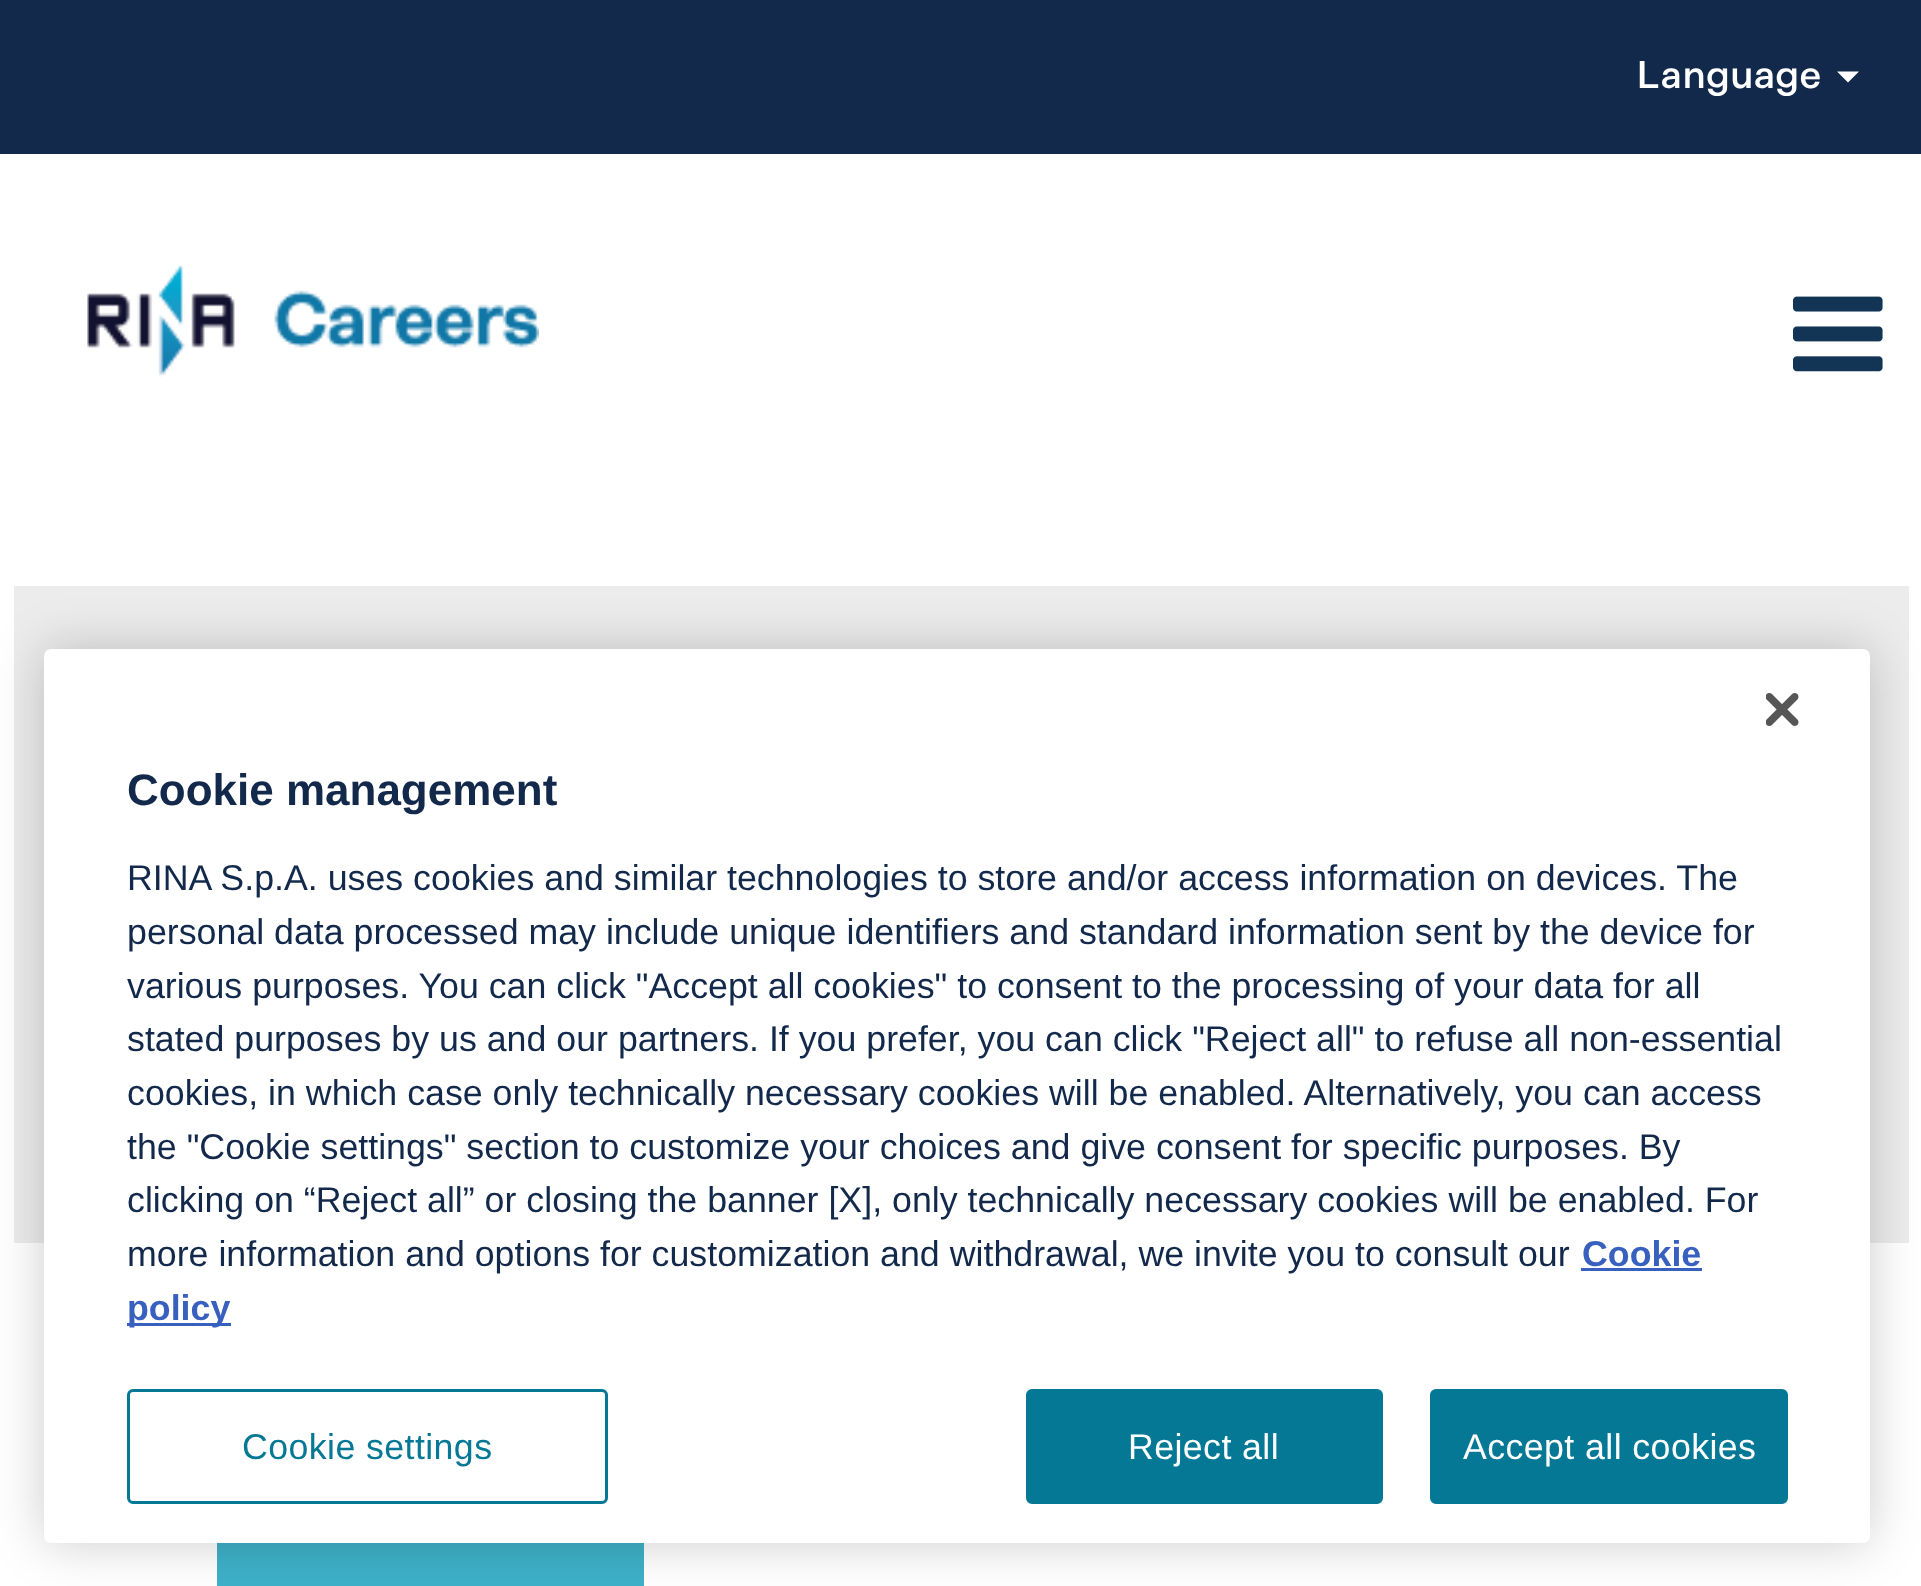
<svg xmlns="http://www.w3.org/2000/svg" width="1921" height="1586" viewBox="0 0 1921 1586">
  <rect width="100%" height="100%" fill="#fff"/>
  <path d="M0 0h1921v154H0z" fill="#13294b"/>
  <path d="M1837 71.5H1859L1848 82.5Z" fill="#fff"/>
  <image x="87" y="264" width="452" height="113" href="img/1.png"/>
  <image x="1793" y="296" width="90" height="76" href="img/2.png"/>
  <path d="M14 586h1895v657H14z" fill="#ececec"/>
  <path d="M217 1543h427v43H217z" fill="#3eb1c8"/>
  <rect x="44" y="649" width="1826" height="894" rx="7" fill="#00000033" filter="blur(25px)"/>
  <rect x="44" y="649" width="1826" height="894" rx="7" fill="#fff"/>
  <image x="1766" y="693" width="33" height="33" href="img/3.png"/>
  <path d="M1581 1268h121v3H1581z" fill="#3860be"/>
  <path d="M127 1323h104v3H127z" fill="#3860be"/>
  <rect x="128.5" y="1390.5" width="478" height="112" rx="4.5" fill="none" stroke="#047895" stroke-width="3"/>
  <rect x="1027.5" y="1390.5" width="354" height="112" rx="4.5" fill="#047895" stroke="#047895" stroke-width="3"/>
  <rect x="1431.5" y="1390.5" width="355" height="112" rx="4.5" fill="#047895" stroke="#047895" stroke-width="3"/>
  <text x="1636" y="88" font-family="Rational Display" font-size="38.5" font-weight="500" fill="#fff">Language</text>
  <text x="127" y="805" font-family="Liberation Sans" font-size="44" font-weight="bold" fill="#13294b">Cookie management</text>
  <g font-family="Liberation Sans" font-size="35.75" fill="#13294b">
    <text x="127" y="890">RINA S.p.A. uses cookies and similar technologies to store and/or access information on devices. The</text>
    <text x="127" y="944">personal data processed may include unique identifiers and standard information sent by the device for</text>
    <text x="127" y="998">various purposes. You can click "Accept all cookies" to consent to the processing of your data for all</text>
    <text x="127" y="1051">stated purposes by us and our partners. If you prefer, you can click "Reject all" to refuse all non-essential</text>
    <text x="127" y="1105">cookies, in which case only technically necessary cookies will be enabled. Alternatively, you can access</text>
    <text x="127" y="1159">the "Cookie settings" section to customize your choices and give consent for specific purposes. By</text>
    <text x="127" y="1212">clicking on “Reject all” or closing the banner [X], only technically necessary cookies will be enabled. For</text>
    <text x="127" y="1266">more information and options for customization and withdrawal, we invite you to consult our</text>
  </g>
  <g font-family="Liberation Sans" font-size="35.75" font-weight="bold" fill="#3860be">
    <text x="1582" y="1266">Cookie</text>
    <text x="127" y="1320">policy</text>
  </g>
  <text x="242" y="1459" font-family="Liberation Sans" font-size="35.75" letter-spacing="0.4" fill="#047895">Cookie settings</text>
  <g font-family="Liberation Sans" font-size="35.75" letter-spacing="0.4" fill="#fff">
    <text x="1128" y="1459">Reject all</text>
    <text x="1463" y="1459">Accept all cookies</text>
  </g>
</svg>
